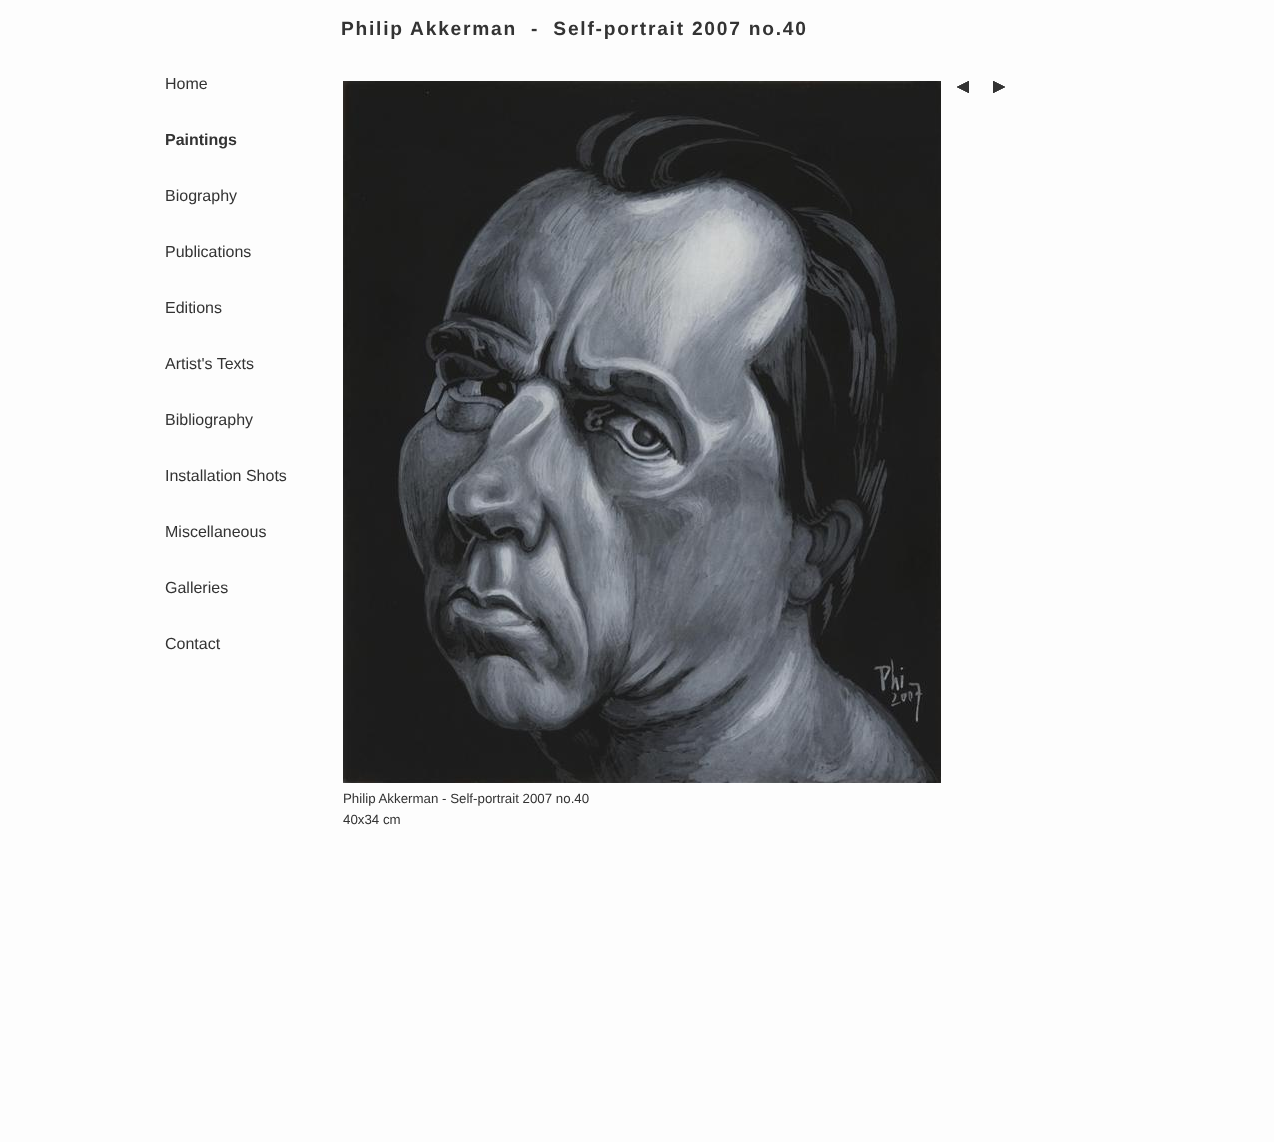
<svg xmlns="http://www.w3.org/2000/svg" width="1274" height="1142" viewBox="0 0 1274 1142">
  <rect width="100%" height="100%" fill="#fdfdfd"/>
  <image x="957" y="81" width="12" height="12" href="img/1.png"/>
  <image x="993" y="81" width="12" height="12" href="img/2.png"/>
  <image x="343" y="81" width="598" height="702" href="img/3.png"/>
  <text x="165" y="89" font-family="Liberation Sans" font-size="16" fill="#333">Home</text>
  <text x="165" y="145" font-family="Liberation Sans" font-size="16" font-weight="bold" fill="#333">Paintings</text>
  <g font-family="Liberation Sans" font-size="16" fill="#333">
    <text x="165" y="201">Biography</text>
    <text x="165" y="257">Publications</text>
    <text x="165" y="313">Editions</text>
    <text x="165" y="369">Artist's Texts</text>
    <text x="165" y="425">Bibliography</text>
    <text x="165" y="481">Installation Shots</text>
    <text x="165" y="537">Miscellaneous</text>
    <text x="165" y="593">Galleries</text>
    <text x="165" y="649">Contact</text>
  </g>
  <text x="341" y="35" font-family="Liberation Sans" font-size="19.2" font-weight="bold" letter-spacing="1.75" fill="#333" xml:space="preserve">Philip Akkerman  -  Self-portrait 2007 no.40</text>
  <g font-family="Liberation Sans" font-size="13.3" fill="#333">
    <text x="343" y="803">Philip Akkerman - Self-portrait 2007 no.40</text>
    <text x="343" y="824">40x34 cm</text>
  </g>
</svg>
